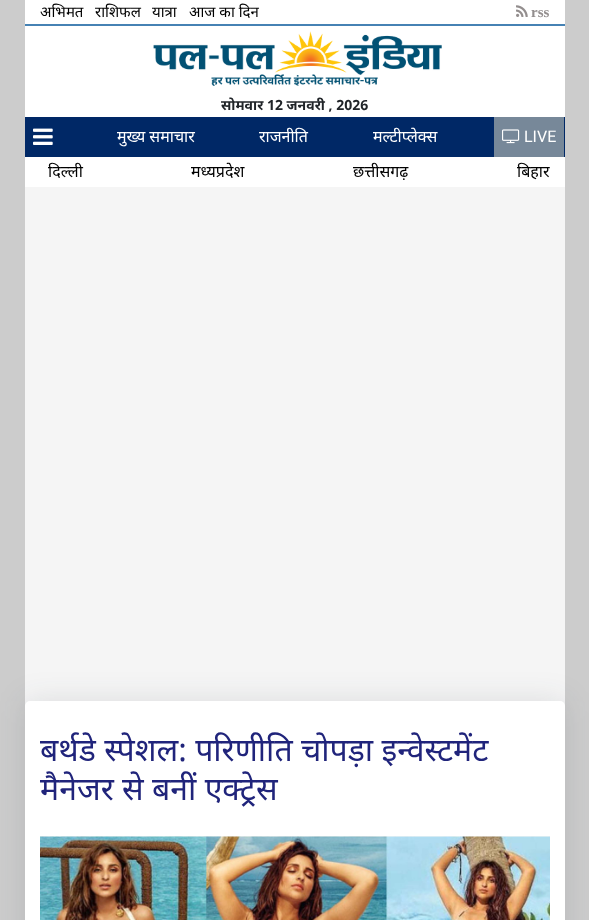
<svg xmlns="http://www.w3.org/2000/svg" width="589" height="920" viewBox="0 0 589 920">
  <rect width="100%" height="100%" fill="#ccc"/>
  <path d="M25 0h540v187H25z" fill="#fff"/>
  <path d="M25 24h540v2H25z" fill="#4682b4"/>
  <image x="516" y="5" width="12" height="12" href="img/1.png"/>
  <image x="153" y="31" width="289" height="55" href="img/2.png"/>
  <path d="M25 117h540v40H25z" fill="#002866"/>
  <image x="33" y="128" width="20" height="17" href="img/3.png"/>
  <path d="M494 117h70v40H494z" fill="#789"/>
  <image x="502" y="129" width="18" height="15" href="img/4.png"/>
  <path d="M25 187h540v519H25z" fill="#f5f5f5"/>
  <rect x="25" y="701" width="540" height="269" rx="5" fill="#1f2d3d1f" filter="blur(15px)"/>
  <rect x="25" y="701" width="540" height="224" rx="5" fill="#fff"/>
  <image x="40" y="836" width="510" height="84" href="img/5.png"/>
  <g font-family="Noto Sans" font-size="15" fill="#000">
    <text x="40" y="17">अभिमत</text>
    <text x="95" y="17">राशिफल</text>
    <text x="152" y="17">यात्रा</text>
    <text x="189" y="17">आज का दिन</text>
  </g>
  <text x="531" y="17" font-family="Liberation Serif" font-size="15" font-weight="bold" fill="#938e8e">rss</text>
  <text x="221" y="110" font-family="Noto Sans" font-size="14" font-weight="bold" fill="#212529">सोमवार 12 जनवरी , 2026</text>
  <g font-family="Noto Sans" font-size="16" fill="#fff">
    <text x="117" y="142">मुख्य समाचार</text>
    <text x="259" y="142">राजनीति</text>
    <text x="373" y="142">मल्टीप्लेक्स</text>
  </g>
  <text x="524" y="142" font-family="Roboto" font-size="16" fill="#fff">LIVE</text>
  <g font-family="Noto Sans" font-size="16" fill="#000">
    <text x="48" y="177">दिल्ली</text>
    <text x="191" y="177">मध्यप्रदेश</text>
    <text x="353" y="177">छत्तीसगढ़</text>
    <text x="517" y="177">बिहार</text>
  </g>
  <g font-family="Noto Sans" font-size="32" fill="#20247b">
    <text x="40" y="761">बर्थडे स्पेशल: परिणीति चोपड़ा इन्वेस्टमेंट</text>
    <text x="40" y="800">मैनेजर से बनीं एक्ट्रेस</text>
  </g>
</svg>
